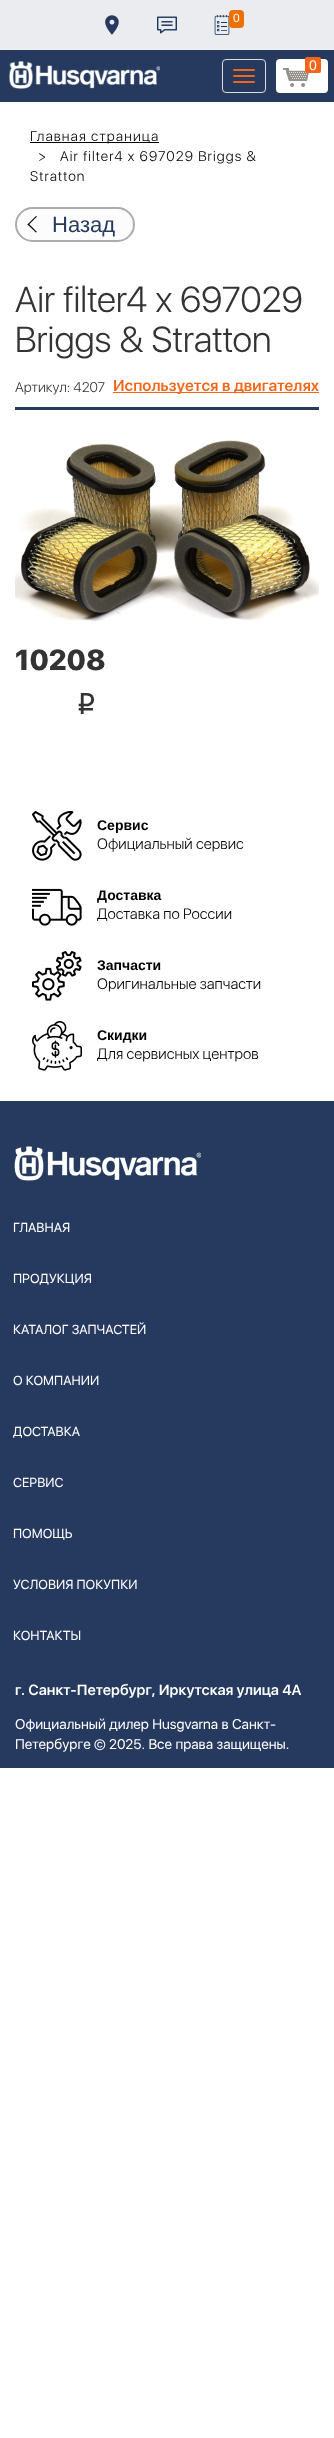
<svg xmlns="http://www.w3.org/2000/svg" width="334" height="2438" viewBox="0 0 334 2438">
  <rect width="100%" height="100%" fill="#fff"/>
  <path d="M0 0h334v50H0z" fill="#eaecf0"/>
  <image x="105" y="15" width="14" height="20" href="img/1.png"/>
  <image x="157" y="16" width="20" height="18" href="img/2.png"/>
  <image x="214" y="15" width="16" height="20" href="img/3.png"/>
  <rect x="229" y="10" width="15" height="18" rx="4" fill="#ed7102"/>
  <path d="M0 50h334v52H0z" fill="#263a5f"/>
  <image x="9" y="61" width="151" height="28" href="img/4.png"/>
  <rect x="222.5" y="59.5" width="43" height="33" rx="3.5" fill="none" stroke="#ddd"/>
  <rect x="233" y="69" width="22" height="2" rx="1" fill="#f4651a"/>
  <rect x="233" y="75" width="22" height="2" rx="1" fill="#f4651a"/>
  <rect x="233" y="81" width="22" height="2" rx="1" fill="#f4651a"/>
  <rect x="276" y="59" width="52" height="34" rx="4" fill="#fff"/>
  <image x="283" y="68" width="26" height="19" href="img/5.png"/>
  <rect x="305" y="57" width="16" height="16" rx="2" fill="#f4651a"/>
  <path d="M30 142h129v1H30z" fill="#000"/>
  <rect x="16" y="208" width="118" height="33" rx="16.5" fill="#fcfcfc" stroke="#acacac" stroke-width="2"/>
  <path d="M27.5 224.5L36 216L37 216.5L28.5 225Z" fill="#000"/>
  <path d="M27.5 224.5L28.5 223.5L37 232L36 232.5Z" fill="#000"/>
  <path d="M113 392h206v1H113z" fill="#f4651a"/>
  <path d="M15 407h304v3H15z" fill="#263a5f"/>
  <image x="15" y="440" width="304" height="182" href="img/6.png"/>
  <image x="32" y="811" width="50" height="50" href="img/7.png"/>
  <image x="32" y="888" width="50" height="38" href="img/8.png"/>
  <image x="32" y="951" width="50" height="50" href="img/9.png"/>
  <image x="32" y="1021" width="50" height="50" href="img/10.png"/>
  <path d="M0 1101h334v667H0z" fill="#263a5f"/>
  <image x="14" y="1146" width="187" height="35" href="img/11.png"/>
  <text x="233" y="22" font-family="Liberation Sans" font-size="12" fill="#fff">0</text>
  <text x="309" y="70" font-family="Liberation Sans" font-size="14" fill="#fff">0</text>
  <g font-family="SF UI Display" font-size="14" font-weight="300" letter-spacing="1.1" fill="#000">
    <text x="30" y="141">Главная страница</text>
    <text x="38" y="161">&gt;</text>
    <text x="60" y="161">Air filter4 x 697029 Briggs &amp;</text>
    <text x="30" y="181">Stratton</text>
  </g>
  <text x="52" y="232" font-family="Liberation Sans" font-size="22" fill="#263a5f">Назад</text>
  <g font-family="SF UI Display" font-size="36" font-weight="300" fill="#333">
    <text x="15" y="312">Air filter4 x 697029</text>
    <text x="15" y="352">Briggs &amp; Stratton</text>
  </g>
  <text x="15" y="392" font-family="SF UI Display" font-size="14" font-weight="300" fill="#333">Артикул: 4207</text>
  <text x="113" y="391" font-family="SF UI Display" font-size="16" font-weight="600" fill="#f4651a">Используется в двигателях</text>
  <text x="15" y="670" font-family="SF UI Display" font-size="30" font-weight="900" fill="#333">10208</text>
  <text x="76" y="714" font-family="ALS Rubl" font-size="30" fill="#333">i</text>
  <text x="97" y="830" font-family="Liberation Sans" font-size="14" font-weight="bold" fill="#000">Сервис</text>
  <text x="97" y="849" font-family="SF UI Display" font-size="15" font-weight="300" fill="#000">Официальный сервис</text>
  <text x="97" y="900" font-family="Liberation Sans" font-size="14" font-weight="bold" fill="#000">Доставка</text>
  <text x="97" y="919" font-family="SF UI Display" font-size="15" font-weight="300" fill="#000">Доставка по России</text>
  <text x="97" y="970" font-family="Liberation Sans" font-size="14" font-weight="bold" fill="#000">Запчасти</text>
  <text x="97" y="989" font-family="SF UI Display" font-size="15" font-weight="300" fill="#000">Оригинальные запчасти</text>
  <text x="97" y="1040" font-family="Liberation Sans" font-size="14" font-weight="bold" fill="#000">Скидки</text>
  <text x="97" y="1059" font-family="SF UI Display" font-size="15" font-weight="300" fill="#000">Для сервисных центров</text>
  <g font-family="SF UI Display" font-size="13" fill="#fff">
    <text x="13" y="1232">ГЛАВНАЯ</text>
    <text x="13" y="1283">ПРОДУКЦИЯ</text>
    <text x="13" y="1334">КАТАЛОГ ЗАПЧАСТЕЙ</text>
    <text x="13" y="1385">О КОМПАНИИ</text>
    <text x="13" y="1436">ДОСТАВКА</text>
    <text x="13" y="1487">СЕРВИС</text>
    <text x="13" y="1538">ПОМОЩЬ</text>
    <text x="13" y="1589">УСЛОВИЯ ПОКУПКИ</text>
    <text x="13" y="1640">КОНТАКТЫ</text>
  </g>
  <text x="15" y="1695" font-family="SF UI Display" font-size="15" font-weight="600" fill="#fff">г. Санкт-Петербург, Иркутская улица 4А</text>
  <g font-family="SF UI Display" font-size="14" fill="#fff">
    <text x="15" y="1729">Официальный дилер Husgvarna в Санкт-</text>
    <text x="15" y="1749">Петербурге © 2025. Все права защищены.</text>
  </g>
</svg>
